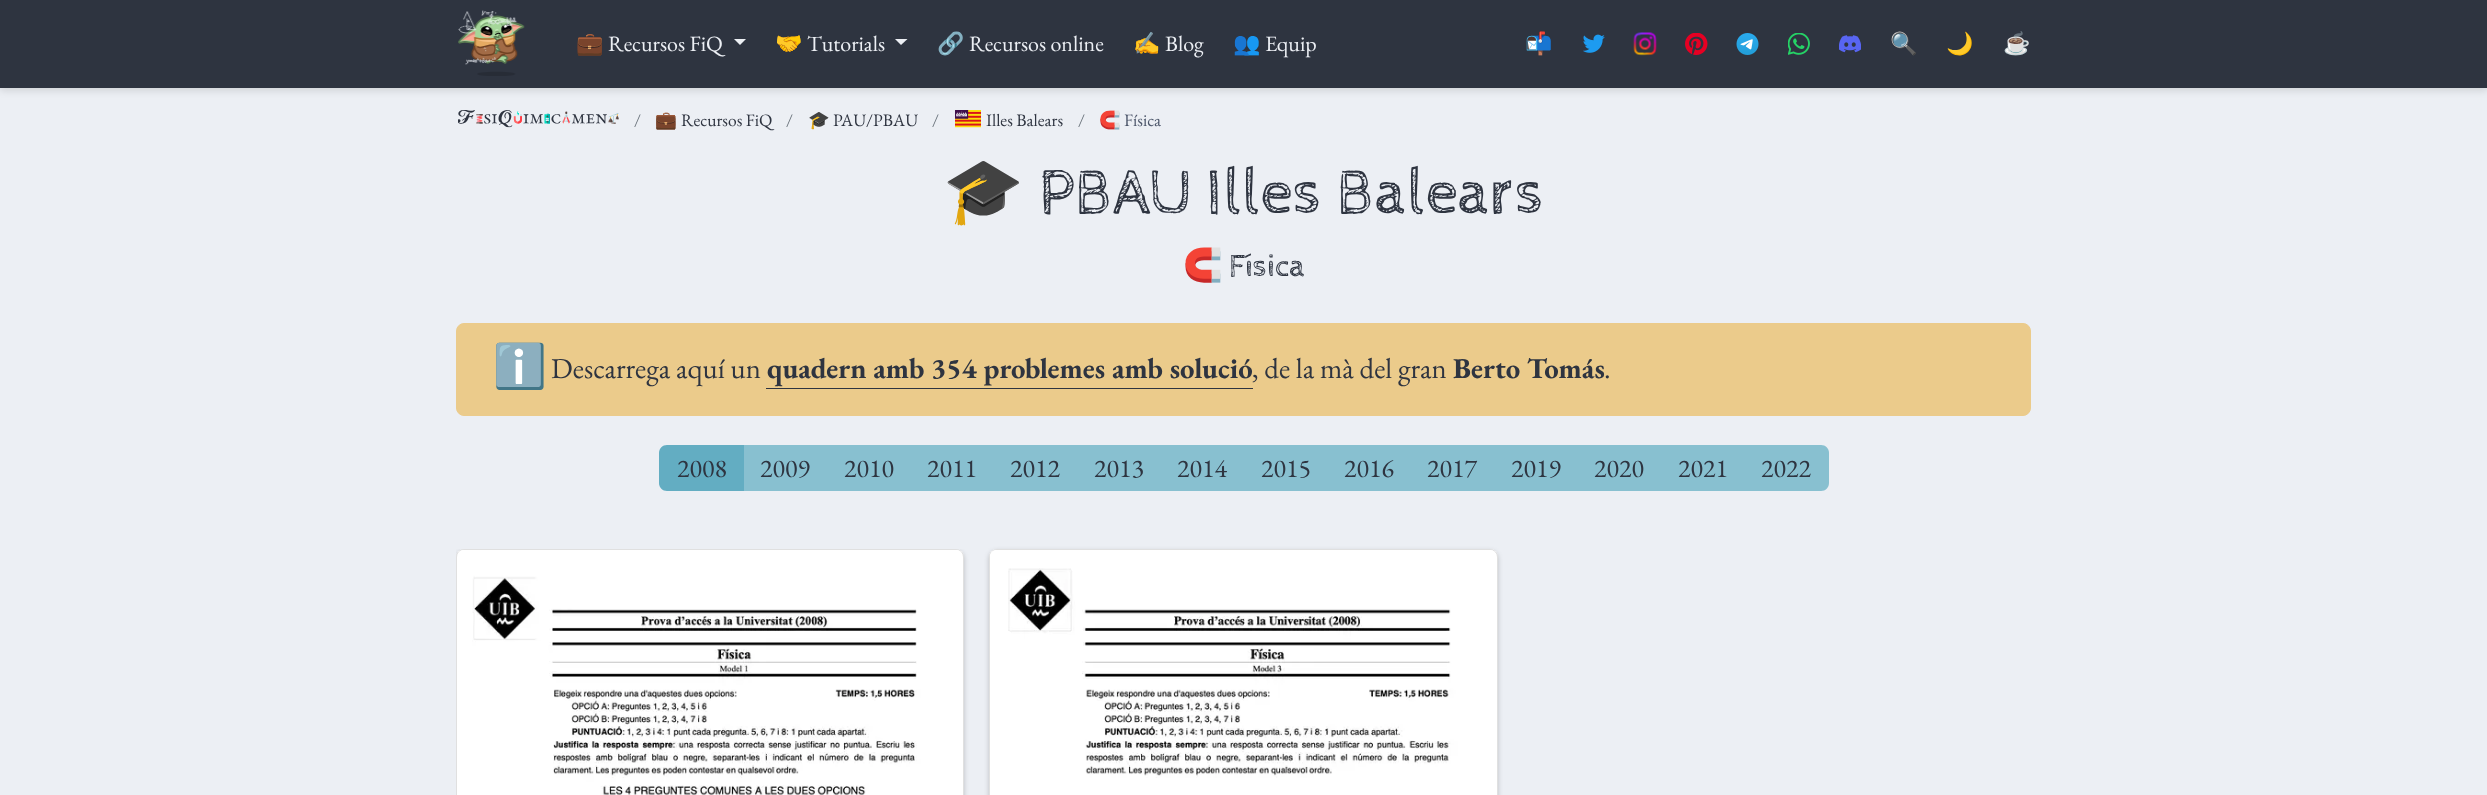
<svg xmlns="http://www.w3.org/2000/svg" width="2487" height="795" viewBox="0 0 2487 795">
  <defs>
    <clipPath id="clip1"><path d="M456 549h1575v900H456z"/></clipPath>
  </defs>
  <rect width="100%" height="100%" fill="#eceff4"/>
  <path d="M0 4h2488v87H0z" fill="#0000001c" filter="blur(3.5px)"/>
  <path d="M0 0h2487v88H0z" fill="#2e3440"/>
  <image x="458" y="10" width="67" height="66" href="img/1.png"/>
  <path d="M734 39H746L740 45Z" fill="#eceff4"/>
  <path d="M895 39H907.5L901 45Z" fill="#eceff4"/>
  <image x="1583" y="34" width="22" height="19" href="img/2.png"/>
  <image x="1633" y="32" width="24" height="24" href="img/3.png"/>
  <image x="1685" y="33" width="23" height="22" href="img/4.png"/>
  <image x="1736" y="33" width="23" height="22" href="img/5.png"/>
  <image x="1788" y="33" width="22" height="22" href="img/6.png"/>
  <image x="1839" y="35" width="22" height="18" href="img/7.png"/>
  <image x="458" y="110" width="161" height="18" href="img/8.png"/>
  <image x="955" y="110" width="26" height="18" href="img/9.png"/>
  <rect x="456.5" y="323.5" width="1574" height="92" rx="7.5" fill="#ebcb8b" stroke="#ebcb8b"/>
  <path d="M766 388h487v1H766z" fill="#2e3440"/>
  <path d="M667 445H744V491H667C662.5 491 659 487.5 659 483V453C659 448.5 662.5 445 667 445Z" fill="#63adc2"/>
  <path d="M744 445h1000v46H744z" fill="#88c0d0"/>
  <path d="M1744 445H1821C1825.5 445 1829 448.5 1829 453V483C1829 487.5 1825.5 491 1821 491H1744Z" fill="#88c0d0"/>
  <g clip-path="url(#clip1)">
    <rect x="456" y="551" width="508" height="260" rx="8" fill="#00000033" filter="blur(2.5px)"/>
  </g>
  <rect x="456" y="549" width="508" height="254" rx="8" fill="#fff"/>
  <rect x="456.5" y="549.5" width="507" height="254" rx="7.5" fill="none" stroke="#0000001f"/>
  <image x="458" y="550" width="504" height="245" href="img/10.png"/>
  <rect x="989" y="551" width="509" height="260" rx="8" fill="#00000033" filter="blur(2.5px)"/>
  <rect x="989" y="549" width="509" height="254" rx="8" fill="#fff"/>
  <rect x="989.5" y="549.5" width="508" height="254" rx="7.5" fill="none" stroke="#0000001f"/>
  <image x="990" y="550" width="505" height="228" href="img/11.png"/>
  <text x="576" y="51" font-family="Noto Color Emoji" font-size="22" fill="#eceff4">💼</text>
  <text x="608" y="51" font-family="EB Garamond" font-size="22" fill="#eceff4">Recursos FiQ</text>
  <text x="775" y="51" font-family="Noto Color Emoji" font-size="22" fill="#eceff4">🤝</text>
  <text x="807" y="51" font-family="EB Garamond" font-size="22" fill="#eceff4">Tutorials</text>
  <text x="937" y="51" font-family="Noto Color Emoji" font-size="22" fill="#eceff4">🔗</text>
  <text x="969" y="51" font-family="EB Garamond" font-size="22" fill="#eceff4">Recursos online</text>
  <text x="1133" y="51" font-family="Noto Color Emoji" font-size="22" fill="#eceff4">✍️</text>
  <text x="1165" y="51" font-family="EB Garamond" font-size="22" fill="#eceff4">Blog</text>
  <text x="1233" y="51" font-family="Noto Color Emoji" font-size="22" fill="#eceff4">👥</text>
  <text x="1265" y="51" font-family="EB Garamond" font-size="22" fill="#eceff4">Equip</text>
  <g font-family="Noto Color Emoji" font-size="22" fill="#d0d3d9">
    <text x="1525" y="51">📬</text>
    <text x="1890" y="51">🔍</text>
    <text x="1946" y="51">🌙</text>
    <text x="2003" y="51">☕</text>
  </g>
  <text x="634" y="126" font-family="EB Garamond" font-size="17.5" fill="#6c757d">/</text>
  <text x="655" y="126" font-family="Noto Color Emoji" font-size="17.5" fill="#2e3440">💼</text>
  <text x="681" y="126" font-family="EB Garamond" font-size="17.5" fill="#2e3440">Recursos FiQ</text>
  <text x="786" y="126" font-family="EB Garamond" font-size="17.5" fill="#6c757d">/</text>
  <text x="808" y="126" font-family="Noto Color Emoji" font-size="17.5" fill="#2e3440">🎓</text>
  <text x="833" y="126" font-family="EB Garamond" font-size="17.5" fill="#2e3440">PAU/PBAU</text>
  <text x="932" y="126" font-family="EB Garamond" font-size="17.5" fill="#6c757d">/</text>
  <text x="986" y="126" font-family="EB Garamond" font-size="17.5" fill="#2e3440">Illes Balears</text>
  <text x="1078" y="126" font-family="EB Garamond" font-size="17.5" fill="#6c757d">/</text>
  <text x="1099" y="126" font-family="Noto Color Emoji" font-size="17.5" fill="#4c566a">🧲</text>
  <text x="1124" y="126" font-family="EB Garamond" font-size="17.5" fill="#4c566a">Física</text>
  <text x="943" y="213" font-family="Noto Color Emoji" font-size="64.75" fill="#2e3440">🎓</text>
  <text x="1038" y="213" font-family="Cabin Sketch" font-size="64.75" fill="#2e3440">PBAU Illes Balears</text>
  <text x="1183" y="276" font-family="Noto Color Emoji" font-size="32" fill="#2e3440">🧲</text>
  <text x="1229" y="276" font-family="Cabin Sketch" font-size="32" fill="#2e3440">Física</text>
  <text x="493" y="381" font-family="Noto Color Emoji" font-size="43" font-weight="bold" fill="#2e3440">ℹ️</text>
  <text x="551" y="378" font-family="EB Garamond" font-size="28.75" fill="#2e3440">Descarrega aquí un</text>
  <text x="767" y="378" font-family="EB Garamond" font-size="28.75" font-weight="bold" fill="#2e3440">quadern amb 354 problemes amb solució</text>
  <text x="1252" y="378" font-family="EB Garamond" font-size="28.75" fill="#2e3440">, de la mà del gran</text>
  <text x="1453" y="378" font-family="EB Garamond" font-size="28.75" font-weight="bold" fill="#2e3440">Berto Tomás</text>
  <text x="1604" y="378" font-family="EB Garamond" font-size="28.75" fill="#2e3440">.</text>
  <g font-family="EB Garamond" font-size="26" fill="#2e3440">
    <text x="677" y="477">2008</text>
    <text x="760" y="477">2009</text>
    <text x="844" y="477">2010</text>
    <text x="927" y="477">2011</text>
    <text x="1010" y="477">2012</text>
    <text x="1094" y="477">2013</text>
    <text x="1177" y="477">2014</text>
    <text x="1261" y="477">2015</text>
    <text x="1344" y="477">2016</text>
    <text x="1427" y="477">2017</text>
    <text x="1511" y="477">2019</text>
    <text x="1594" y="477">2020</text>
    <text x="1678" y="477">2021</text>
    <text x="1761" y="477">2022</text>
  </g>
</svg>
